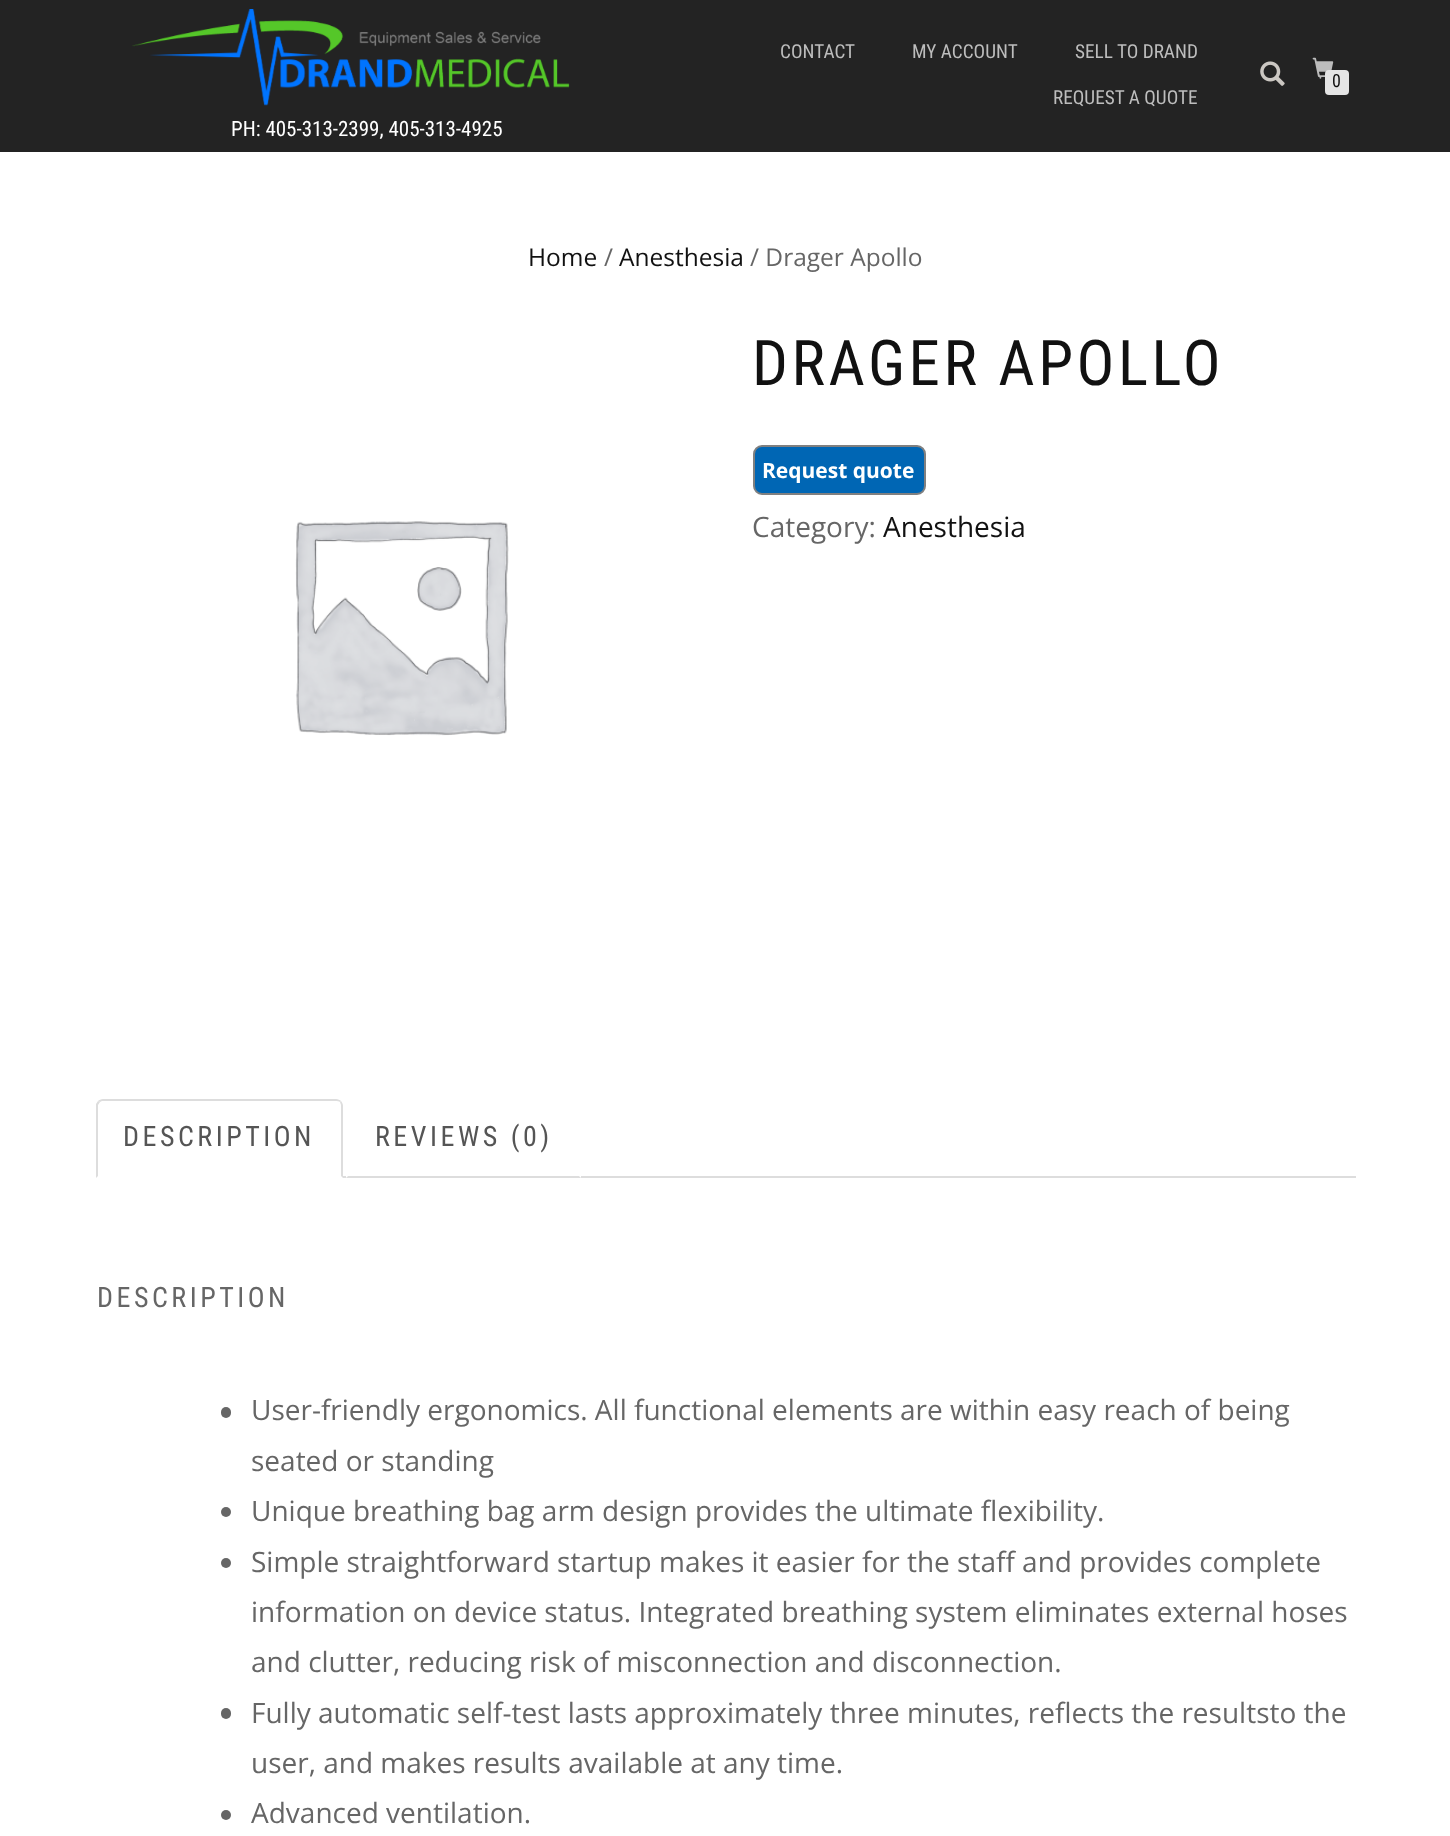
<svg xmlns="http://www.w3.org/2000/svg" width="1450" height="1836" viewBox="0 0 1450 1836">
  <rect width="100%" height="100%" fill="#fff"/>
  <path d="M0 0h1450v152H0z" fill="#232323"/>
  <image x="1260" y="61" width="25" height="25" href="img/1.png"/>
  <image x="1312" y="57" width="22" height="22" href="img/2.png"/>
  <rect x="1325" y="70" width="24" height="25" rx="4" fill="#e5e5e5"/>
  <image x="132" y="9" width="438" height="97" href="img/3.png"/>
  <rect x="754" y="446" width="171" height="48" rx="8" fill="#0066b4" stroke="#808080" stroke-width="2"/>
  <image x="295" y="521" width="214" height="215" href="img/4.png"/>
  <path d="M343 1176h1013v2H343z" fill="#ddd"/>
  <path d="M103 1099C101 1099 99 1100 98 1101L100 1102L102 1101H336C337 1101 339 1101 340 1102L341 1101C340 1100 338 1099 336 1099Z" fill="#ddd"/>
  <path d="M343 1178V1106C343 1104 342 1102 341 1101L340 1102L341 1105V1176Z" fill="#ddd"/>
  <path d="M96 1178V1104L98 1101L100 1102L98 1105V1176Z" fill="#ddd"/>
  <path d="M581 1178V1106C581 1104 580 1102 579 1101L578 1102L579 1105V1176Z" fill="#fff"/>
  <path d="M346 1178V1104L348 1101L350 1102L348 1105V1176Z" fill="#fff"/>
  <rect x="221" y="1407" width="10" height="11" rx="5" fill="#666"/>
  <circle cx="226" cy="1512" r="5" fill="#666"/>
  <circle cx="226" cy="1563" r="5" fill="#666"/>
  <rect x="221" y="1708" width="10" height="11" rx="5" fill="#666"/>
  <circle cx="226" cy="1815" r="5" fill="#666"/>
  <g font-family="Roboto Condensed" font-size="19.25" fill="#bdbdbd">
    <text x="780" y="58">CONTACT</text>
    <text x="912" y="58">MY ACCOUNT</text>
    <text x="1075" y="58">SELL TO DRAND</text>
    <text x="1053" y="104">REQUEST A QUOTE</text>
  </g>
  <text x="1332" y="87" font-family="Roboto Condensed" font-size="18" fill="#111">0</text>
  <text x="231" y="136" font-family="Roboto Condensed" font-size="21" fill="#fff">PH: 405-313-2399, 405-313-4925</text>
  <text x="528" y="266" font-family="Open Sans" font-size="24.5" fill="#111">Home</text>
  <text x="604" y="266" font-family="Open Sans" font-size="24.5" fill="#666">/</text>
  <text x="619" y="266" font-family="Open Sans" font-size="24.5" fill="#111">Anesthesia</text>
  <text x="750" y="266" font-family="Open Sans" font-size="24.5" fill="#666">/ Drager Apollo</text>
  <text x="752" y="385" font-family="Roboto Condensed" font-size="63" letter-spacing="3.5" fill="#111">DRAGER APOLLO</text>
  <text x="762" y="478" font-family="Open Sans" font-size="21" font-weight="bold" fill="#fff">Request quote</text>
  <text x="752" y="537" font-family="Open Sans" font-size="28" fill="#666">Category:</text>
  <text x="883" y="537" font-family="Open Sans" font-size="28" fill="#111">Anesthesia</text>
  <g font-family="Roboto Condensed" font-size="28" letter-spacing="3.5" fill="#555">
    <text x="123" y="1146">DESCRIPTION</text>
    <text x="375" y="1146">REVIEWS (0)</text>
  </g>
  <text x="97" y="1307" font-family="Roboto Condensed" font-size="28" letter-spacing="3.5" fill="#666">DESCRIPTION</text>
  <g font-family="Open Sans" font-size="28" fill="#666">
    <text x="251" y="1420">User-friendly ergonomics. All functional elements are within easy reach of being</text>
    <text x="251" y="1471">seated or standing</text>
    <text x="251" y="1521">Unique breathing bag arm design provides the ultimate flexibility.</text>
    <text x="251" y="1572">Simple straightforward startup makes it easier for the staff and provides complete</text>
    <text x="251" y="1622">information on device status. Integrated breathing system eliminates external hoses</text>
    <text x="251" y="1672">and clutter, reducing risk of misconnection and disconnection.</text>
    <text x="251" y="1723">Fully automatic self-test lasts approximately three minutes, reflects the resultsto the</text>
    <text x="251" y="1773">user, and makes results available at any time.</text>
    <text x="251" y="1823">Advanced ventilation.</text>
  </g>
</svg>
